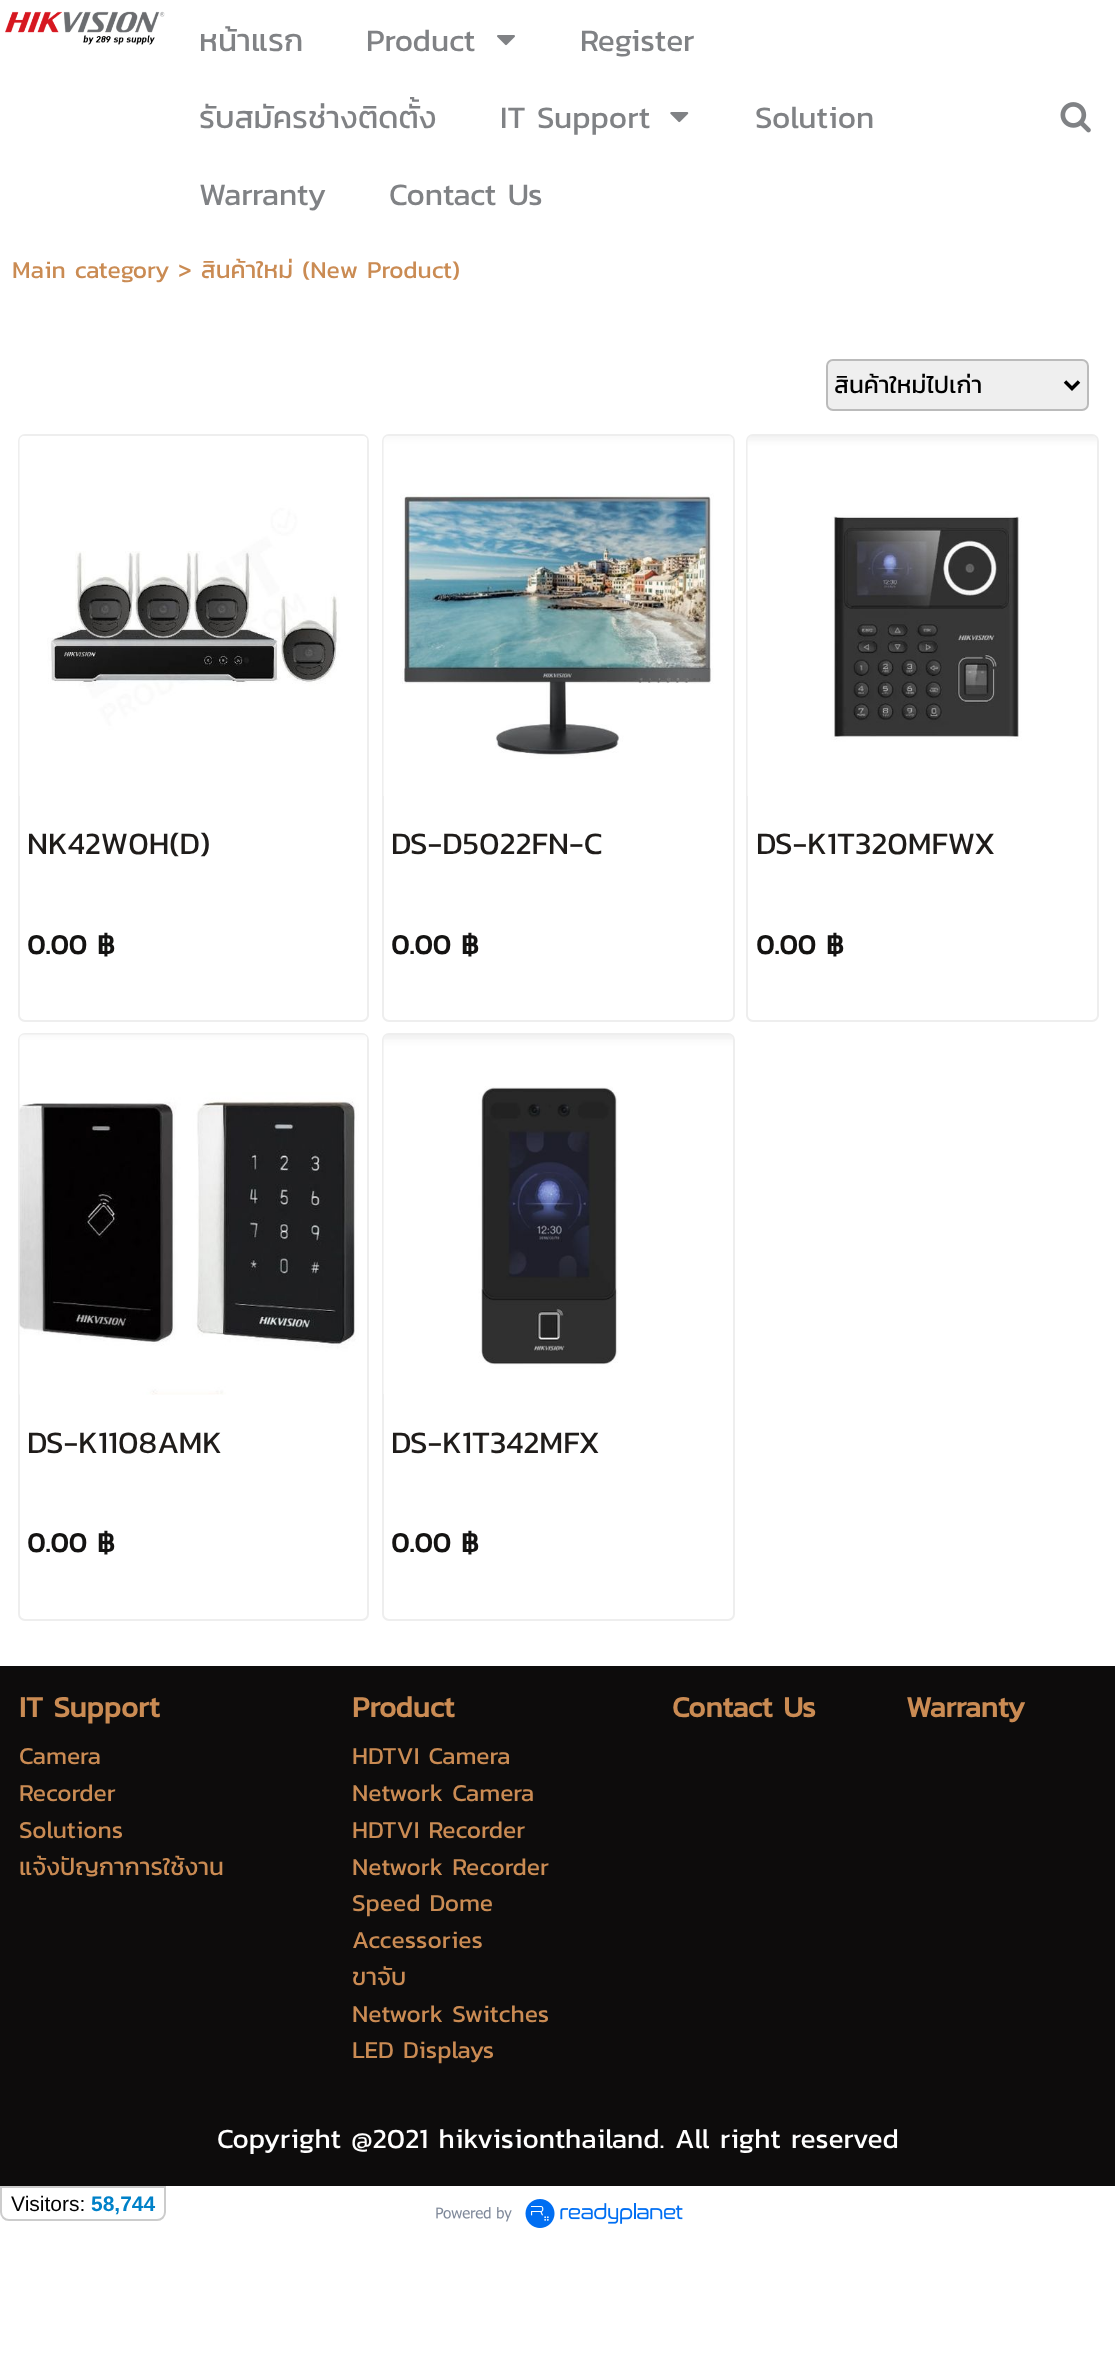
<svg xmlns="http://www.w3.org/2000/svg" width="1115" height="2353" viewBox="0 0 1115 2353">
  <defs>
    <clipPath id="clip1"><path d="M835 366h224v40H835z"/></clipPath>
  </defs>
  <rect width="100%" height="100%" fill="#fff"/>
  <image x="5" y="11" width="160" height="34" href="img/1.png"/>
  <image x="497" y="35" width="18" height="11" href="img/2.png"/>
  <image x="670" y="112" width="19" height="11" href="img/3.png"/>
  <image x="1060" y="102" width="31" height="31" href="img/4.png"/>
  <rect x="827" y="360" width="261" height="50" rx="6" fill="#efefef" stroke="#bbb" stroke-width="2"/>
  <path d="M1065 381.5L1072 388.5L1079 381.5" fill="none" stroke="#000" stroke-width="3.5"/>
  <rect x="19" y="435" width="349" height="586" rx="6" fill="none" stroke="#eee" stroke-width="2"/>
  <image x="19" y="436" width="348" height="360" href="img/5.png"/>
  <rect x="383" y="435" width="351" height="586" rx="6" fill="none" stroke="#eee" stroke-width="2"/>
  <image x="383" y="436" width="350" height="360" href="img/6.png"/>
  <rect x="747" y="435" width="351" height="586" rx="6" fill="none" stroke="#eee" stroke-width="2"/>
  <image x="747" y="436" width="350" height="360" href="img/7.png"/>
  <rect x="19" y="1034" width="349" height="586" rx="6" fill="none" stroke="#eee" stroke-width="2"/>
  <image x="19" y="1034" width="348" height="361" href="img/8.png"/>
  <rect x="383" y="1034" width="351" height="586" rx="6" fill="none" stroke="#eee" stroke-width="2"/>
  <image x="383" y="1035" width="350" height="359" href="img/9.png"/>
  <path d="M0 1666h1115v520H0z" fill="#0d0c0c"/>
  <path d="M1 2187H165V2212C165 2216.5 161.5 2220 157 2220H9C4.5 2220 1 2216.5 1 2212Z" fill="none" stroke="#ccc" stroke-width="2"/>
  <image x="436" y="2199" width="247" height="29" href="img/10.png"/>
  <g font-family="Kanit" font-size="31.5" fill="#808285">
    <text x="199" y="51">หน้าแรก</text>
    <text x="366" y="51">Product</text>
    <text x="580" y="51">Register</text>
    <text x="199" y="128">รับสมัครช่างติดตั้ง</text>
    <text x="500" y="128">IT Support</text>
    <text x="755" y="128">Solution</text>
    <text x="199" y="205">Warranty</text>
    <text x="389" y="205">Contact Us</text>
  </g>
  <text x="12" y="278" font-family="Kanit" font-size="24.5" fill="#ca8b53">Main category &gt; สินค้าใหม่ (New Product)</text>
  <g clip-path="url(#clip1)">
    <text x="834" y="393" font-family="Kanit" font-size="24.5" fill="#000">สินค้าใหม่ไปเก่า</text>
  </g>
  <text x="27" y="854" font-family="Kanit" font-size="31.5" fill="#1f1c1a">NK42W0H(D)</text>
  <text x="27" y="954" font-family="Kanit" font-size="28" font-weight="bold" fill="#141312">0.00 ฿</text>
  <text x="391" y="854" font-family="Kanit" font-size="31.5" fill="#1f1c1a">DS-D5022FN-C</text>
  <text x="391" y="954" font-family="Kanit" font-size="28" font-weight="bold" fill="#141312">0.00 ฿</text>
  <text x="756" y="854" font-family="Kanit" font-size="31.5" fill="#1f1c1a">DS-K1T320MFWX</text>
  <text x="756" y="954" font-family="Kanit" font-size="28" font-weight="bold" fill="#141312">0.00 ฿</text>
  <text x="27" y="1453" font-family="Kanit" font-size="31.5" fill="#1f1c1a">DS-K1108AMK</text>
  <text x="27" y="1552" font-family="Kanit" font-size="28" font-weight="bold" fill="#141312">0.00 ฿</text>
  <text x="391" y="1453" font-family="Kanit" font-size="31.5" fill="#1f1c1a">DS-K1T342MFX</text>
  <text x="391" y="1552" font-family="Kanit" font-size="28" font-weight="bold" fill="#141312">0.00 ฿</text>
  <text x="19" y="1717" font-family="Kanit" font-size="29.5" font-weight="bold" fill="#ca8b53">IT Support</text>
  <g font-family="Kanit" font-size="24.5" fill="#ca8b53">
    <text x="19" y="1764">Camera</text>
    <text x="19" y="1801">Recorder</text>
    <text x="19" y="1838">Solutions</text>
    <text x="19" y="1875">แจ้งปัญกาการใช้งาน</text>
  </g>
  <text x="352" y="1717" font-family="Kanit" font-size="29.5" font-weight="bold" fill="#ca8b53">Product</text>
  <g font-family="Kanit" font-size="24.5" fill="#ca8b53">
    <text x="352" y="1764">HDTVI Camera</text>
    <text x="352" y="1801">Network Camera</text>
    <text x="352" y="1838">HDTVI Recorder</text>
    <text x="352" y="1875">Network Recorder</text>
    <text x="352" y="1911">Speed Dome</text>
    <text x="352" y="1948">Accessories</text>
    <text x="352" y="1985">ขาจับ</text>
    <text x="352" y="2022">Network Switches</text>
    <text x="352" y="2058">LED Displays</text>
  </g>
  <g font-family="Kanit" font-size="29.5" font-weight="bold" fill="#ca8b53">
    <text x="672" y="1717">Contact Us</text>
    <text x="906" y="1717">Warranty</text>
  </g>
  <text x="217" y="2148" font-family="Kanit" font-size="28" fill="#fff">Copyright @2021 hikvisionthailand. All right reserved</text>
  <text x="11" y="2211" font-family="Liberation Sans" font-size="21" fill="#000">Visitors:</text>
  <text x="91" y="2211" font-family="Liberation Sans" font-size="21" font-weight="bold" fill="#0081c8">58,744</text>
</svg>
